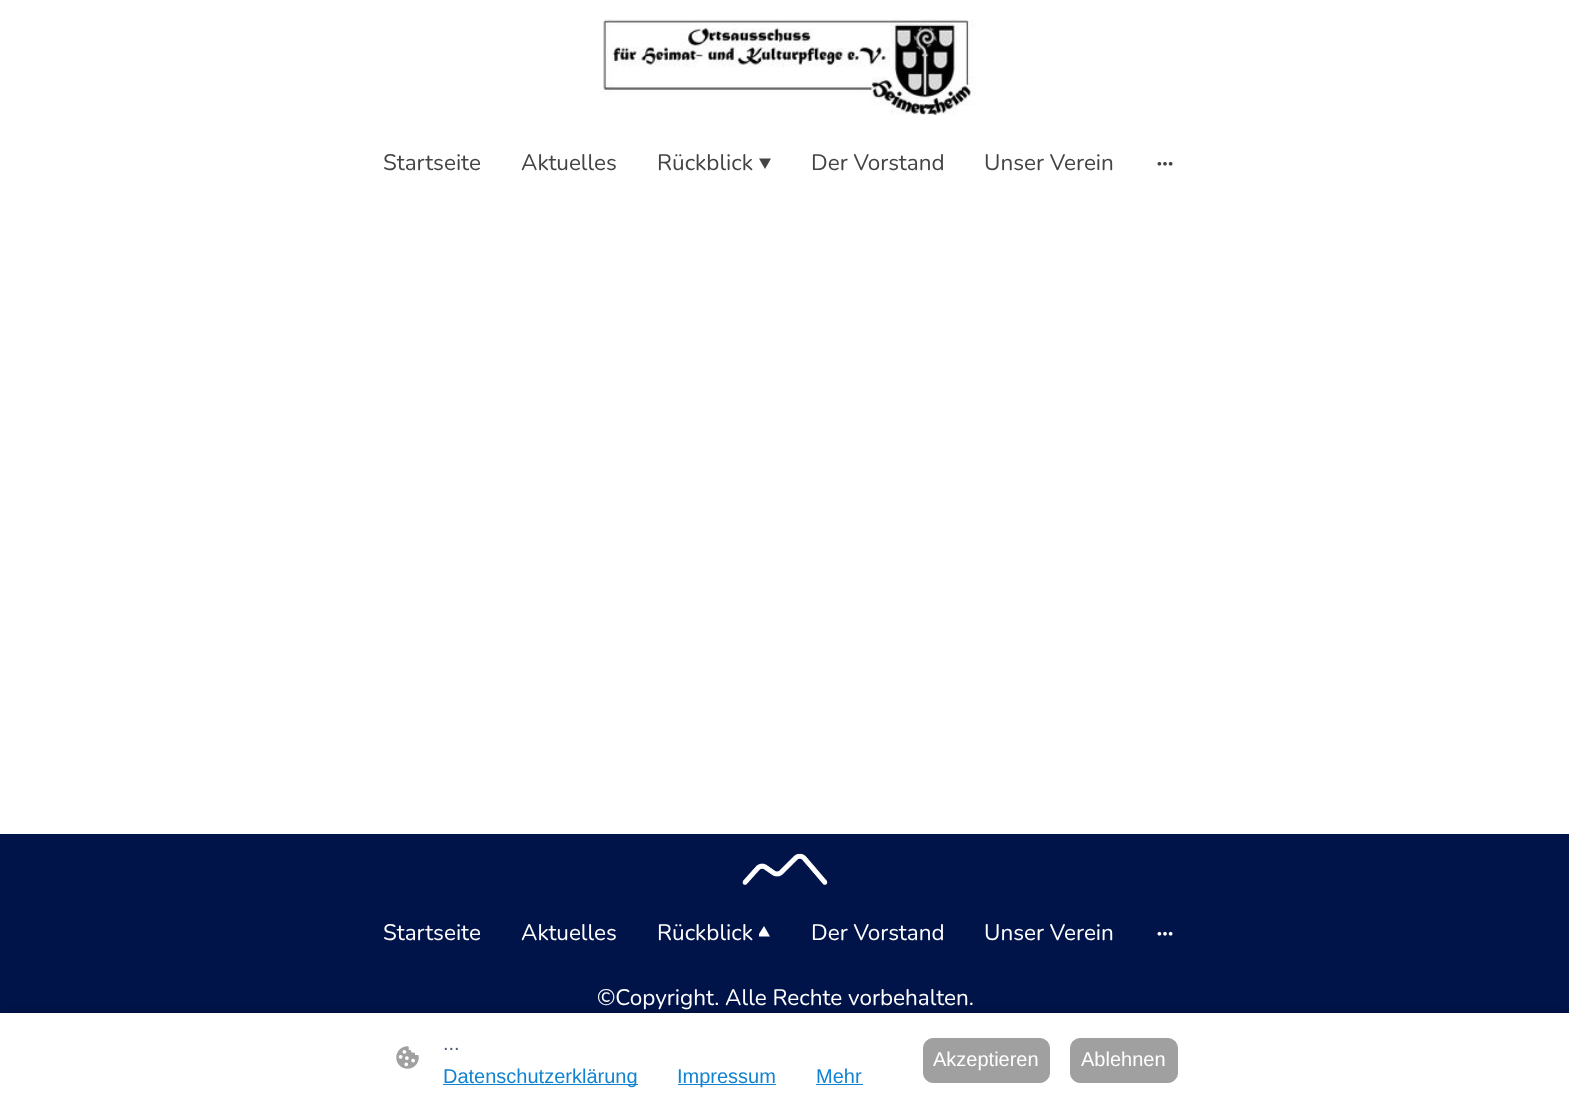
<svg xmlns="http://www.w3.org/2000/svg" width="1569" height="1107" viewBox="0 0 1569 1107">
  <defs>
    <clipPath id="clip1"><path d="M759 918h12v30H759z"/></clipPath>
  </defs>
  <rect width="100%" height="100%" fill="#fff"/>
  <image x="603" y="19" width="373" height="96" href="img/1.png"/>
  <path d="M771 158.5L765 169L759 158.5Z" fill="#444"/>
  <image x="1157" y="161" width="16" height="5" href="img/2.png"/>
  <path d="M0 834h1569v179H0z" fill="#00144a"/>
  <image x="742" y="853" width="86" height="32" href="img/3.png"/>
  <g clip-path="url(#clip1)">
    <path d="M757.5 936.5L764 926L770 936.5Z" fill="#fff"/>
  </g>
  <image x="1157" y="931" width="16" height="5" href="img/4.png"/>
  <path d="M8 1016h1555v80H8z" fill="#000000a1" filter="blur(5px)"/>
  <path d="M0 1013h1569v94H0z" fill="#fff"/>
  <image x="396" y="1046" width="23" height="23" href="img/5.png"/>
  <path d="M443 1084h195v1H443z" fill="#1183d1"/>
  <path d="M678 1084h98v1H678z" fill="#1183d1"/>
  <path d="M816 1084h47v1H816z" fill="#1183d1"/>
  <rect x="923.5" y="1038.5" width="126" height="44" rx="9.5" fill="#a0a0a0" stroke="#a0a0a0"/>
  <rect x="1070.5" y="1038.5" width="107" height="44" rx="9.5" fill="#a0a0a0" stroke="#a0a0a0"/>
  <g font-family="Nunito" font-size="22.5" fill="#444">
    <text x="383" y="170">Startseite</text>
    <text x="521" y="170">Aktuelles</text>
    <text x="657" y="170">Rückblick</text>
    <text x="811" y="170">Der Vorstand</text>
    <text x="984" y="170">Unser Verein</text>
  </g>
  <g font-family="Nunito" font-size="22.5" fill="#fff">
    <text x="383" y="940">Startseite</text>
    <text x="521" y="940">Aktuelles</text>
    <text x="657" y="940">Rückblick</text>
    <text x="811" y="940">Der Vorstand</text>
    <text x="984" y="940">Unser Verein</text>
    <text x="597" y="1005">©Copyright. Alle Rechte vorbehalten.</text>
  </g>
  <text x="443" y="1050" font-family="Liberation Sans" font-size="20" fill="#4a5a73">...</text>
  <g font-family="Liberation Sans" font-size="20" fill="#1183d1">
    <text x="443" y="1083">Datenschutzerklärung</text>
    <text x="677" y="1083">Impressum</text>
    <text x="816" y="1083">Mehr</text>
  </g>
  <g font-family="Liberation Sans" font-size="20" fill="#fff">
    <text x="933" y="1066">Akzeptieren</text>
    <text x="1081" y="1066">Ablehnen</text>
  </g>
</svg>
